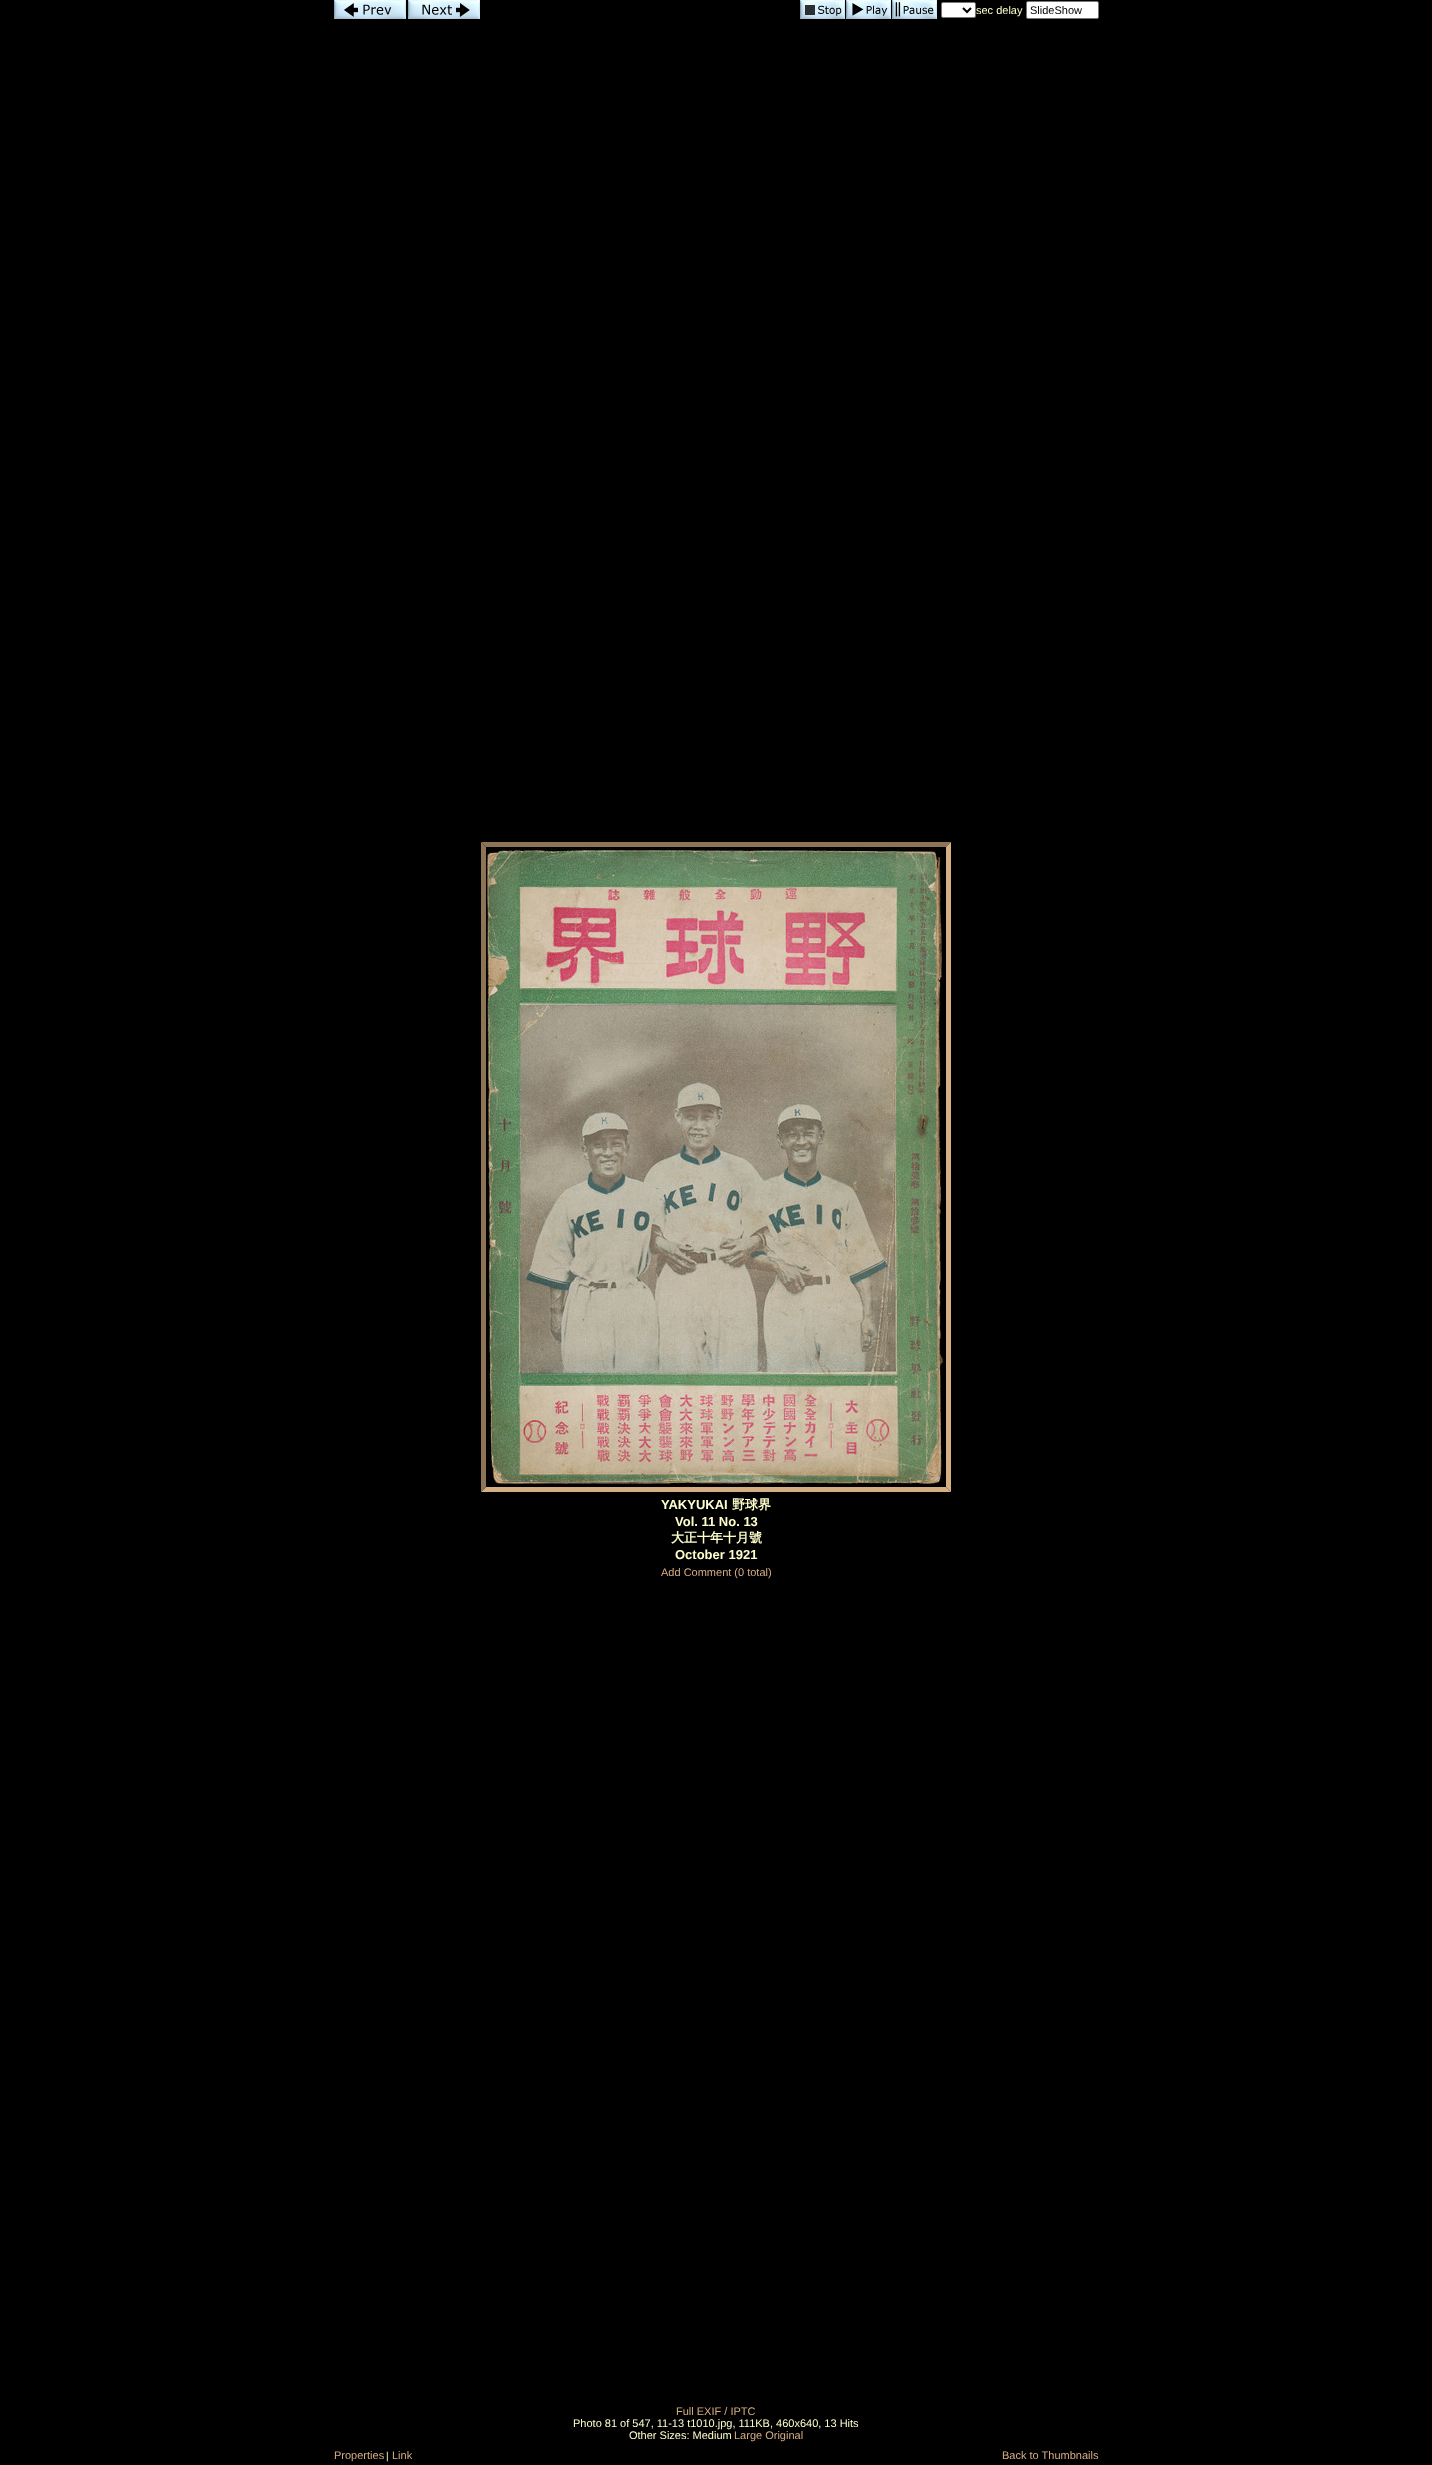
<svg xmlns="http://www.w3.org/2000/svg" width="1432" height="2465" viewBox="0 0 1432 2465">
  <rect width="100%" height="100%" fill="#000"/>
  <image x="334" y="0" width="72" height="19" href="img/1.png"/>
  <image x="408" y="0" width="72" height="19" href="img/2.png"/>
  <image x="800" y="0" width="45" height="19" href="img/3.png"/>
  <image x="846" y="0" width="45" height="19" href="img/4.png"/>
  <image x="892" y="0" width="45" height="19" href="img/5.png"/>
  <rect x="941.5" y="2.5" width="34" height="15" rx="1.5" fill="#fff" stroke="#767676"/>
  <path d="M963 8L967 12L971 8" fill="none" stroke="#000" stroke-width="2"/>
  <rect x="1026.5" y="1.5" width="72" height="17" rx="1.5" fill="#fff" stroke="#767676"/>
  <path d="M481 842H951L946 847H486Z" fill="#8e7457"/>
  <path d="M951 842V1492L946 1487V847Z" fill="#d5ae83"/>
  <path d="M951 1492H481L486 1487H946Z" fill="#d5ae83"/>
  <path d="M481 1492V842L486 847V1487Z" fill="#8e7457"/>
  <image x="486" y="847" width="459" height="640" href="img/6.png"/>
  <text x="976" y="14" font-family="Liberation Sans" font-size="11" fill="#ffc">sec delay</text>
  <text x="1030" y="14" font-family="Liberation Sans" font-size="11" fill="#000">SlideShow</text>
  <text x="661" y="1509" font-family="Liberation Sans" font-size="13" font-weight="bold" fill="#ffc">YAKYUKAI</text>
  <text x="732" y="1509" font-family="WenQuanYi Zen Hei" font-size="13" font-weight="bold" fill="#ffc">野球界</text>
  <text x="675" y="1526" font-family="Liberation Sans" font-size="13" font-weight="bold" fill="#ffc">Vol. 11 No. 13</text>
  <text x="671" y="1542" font-family="WenQuanYi Zen Hei" font-size="13" font-weight="bold" fill="#ffc">大正十年十月號</text>
  <text x="675" y="1559" font-family="Liberation Sans" font-size="13" font-weight="bold" fill="#ffc">October 1921</text>
  <g font-family="Liberation Sans" font-size="11" fill="#d5ae83">
    <text x="661" y="1576">Add Comment (0 total)</text>
    <text x="676" y="2415">Full EXIF / IPTC</text>
  </g>
  <g font-family="Liberation Sans" font-size="11" fill="#ffc">
    <text x="573" y="2427">Photo 81 of 547, 11-13 t1010.jpg, 111KB, 460x640, 13 Hits</text>
    <text x="629" y="2439">Other Sizes: Medium</text>
  </g>
  <g font-family="Liberation Sans" font-size="11" fill="#d5ae83">
    <text x="734" y="2439">Large Original</text>
    <text x="334" y="2459">Properties</text>
  </g>
  <text x="386" y="2459" font-family="Liberation Sans" font-size="10" fill="#ffc">|</text>
  <g font-family="Liberation Sans" font-size="11" fill="#d5ae83">
    <text x="392" y="2459">Link</text>
    <text x="1002" y="2459">Back to Thumbnails</text>
  </g>
</svg>
